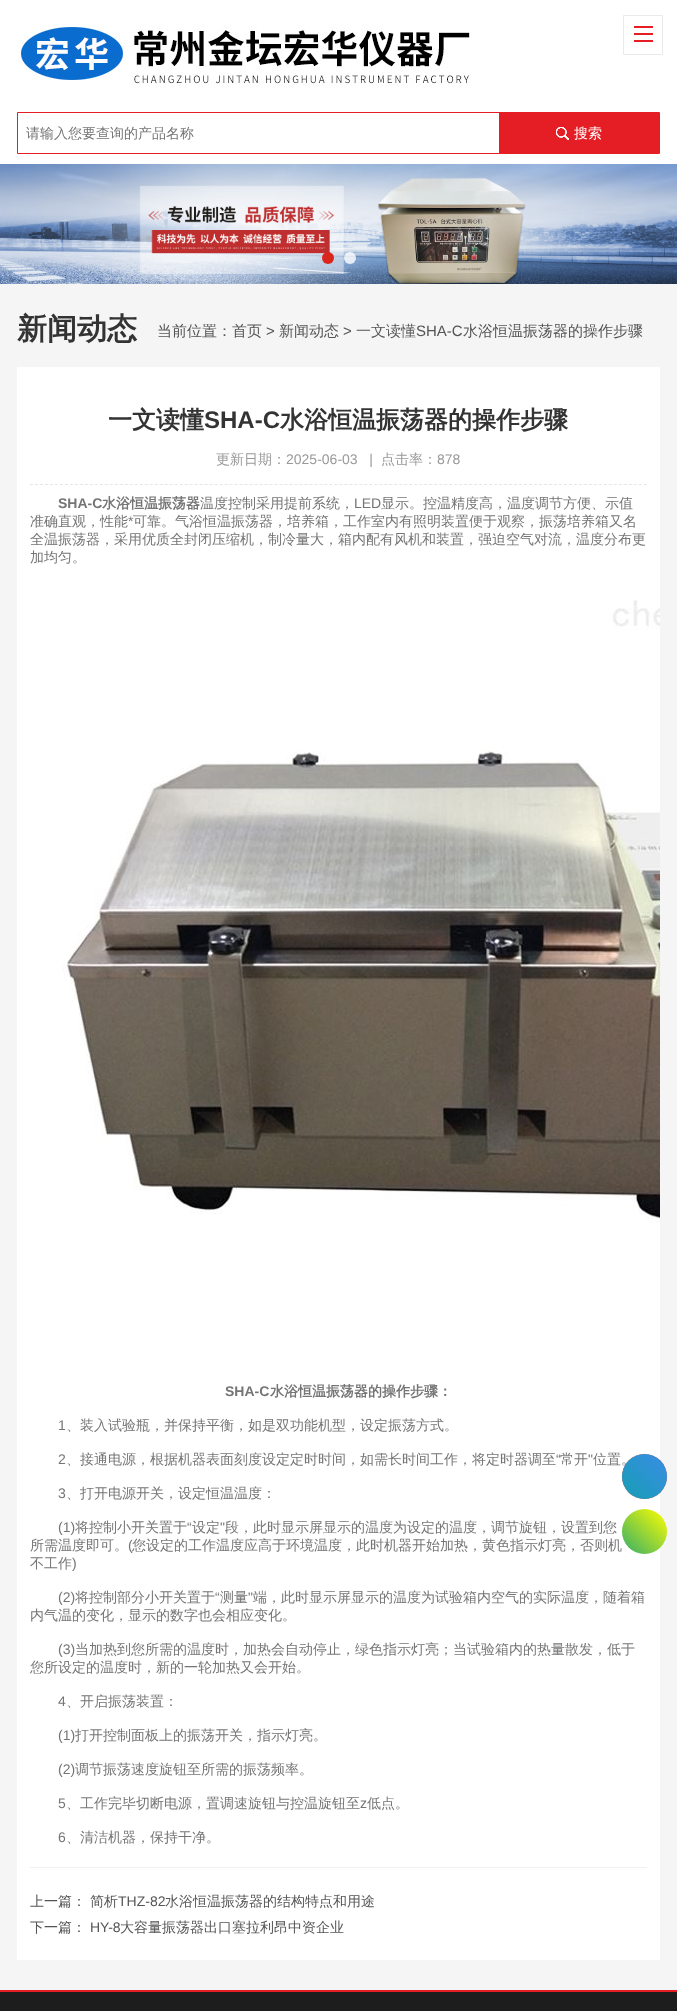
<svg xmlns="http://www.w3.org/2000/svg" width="677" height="2011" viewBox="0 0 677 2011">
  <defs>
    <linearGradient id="g1" gradientUnits="userSpaceOnUse" x1="622" y1="1499" x2="667" y2="1454"><stop offset="0" stop-color="#00a9c2" stop-opacity="0.9"/><stop offset="1" stop-color="#2996f9" stop-opacity="0.9"/></linearGradient>
    <linearGradient id="g2" gradientUnits="userSpaceOnUse" x1="622" y1="1554" x2="667" y2="1509"><stop offset="0" stop-color="#34ad6a"/><stop offset="1" stop-color="#ff0"/></linearGradient>
  </defs>
  <rect width="100%" height="100%" fill="#fff"/>
  <path d="M623.5 15.5h39v39H623.5z" fill="none" stroke="#eaeaea"/>
  <path d="M634 26h19v2H634z" fill="#e51e25"/>
  <path d="M634 33h19v2H634z" fill="#e51e25"/>
  <path d="M634 40h19v2H634z" fill="#e51e25"/>
  <image x="17" y="24" width="454" height="64" href="img/1.png"/>
  <path d="M17.5 112.5h642v41H17.5z" fill="none" stroke="#e51e25"/>
  <path d="M499 113h160v40H499z" fill="#e51e25"/>
  <image x="556" y="127" width="13" height="13" href="img/2.png"/>
  <image x="0" y="164" width="677" height="120" href="img/3.png"/>
  <circle cx="328" cy="258" r="6" fill="#da251c"/>
  <circle cx="350" cy="258" r="6" fill="#ffffffcc"/>
  <path d="M0 284h677v1706H0z" fill="#f5f5f5"/>
  <path d="M17 367h643v1593H17z" fill="#fff"/>
  <path d="M30 484.5H647" fill="none" stroke="#e6e6e6" stroke-dasharray="3 1.99"/>
  <image x="62" y="600" width="598" height="623" href="img/4.png"/>
  <path d="M30 1867h617v1H30z" fill="#f1f1f1"/>
  <path d="M0 1992h677v19H0z" fill="#1d1d1d"/>
  <path d="M0 1990h677v2H0z" fill="#e51e25"/>
  <text x="26" y="138" font-family="WenQuanYi Zen Hei" font-size="14" font-weight="500" fill="#757575">请输入您要查询的产品名称</text>
  <text x="574" y="138" font-family="WenQuanYi Zen Hei" font-size="14" font-weight="500" fill="#fff">搜索</text>
  <text x="17" y="339" font-family="WenQuanYi Zen Hei" font-size="30" font-weight="bold" fill="#333">新闻动态</text>
  <text x="157" y="336" font-family="WenQuanYi Zen Hei" font-size="15" font-weight="500" fill="#555">当前位置：首页</text>
  <text x="266" y="336" font-family="Liberation Sans" font-size="15" fill="#555">&gt;</text>
  <text x="279" y="336" font-family="WenQuanYi Zen Hei" font-size="15" font-weight="500" fill="#555">新闻动态</text>
  <text x="343" y="336" font-family="Liberation Sans" font-size="15" fill="#555">&gt;</text>
  <text x="356" y="336" font-family="WenQuanYi Zen Hei" font-size="15" font-weight="500" fill="#555">一文读懂</text>
  <text x="416" y="336" font-family="Liberation Sans" font-size="15" fill="#555">SHA-C</text>
  <text x="463" y="336" font-family="WenQuanYi Zen Hei" font-size="15" font-weight="500" fill="#555">水浴恒温振荡器的操作步骤</text>
  <text x="108" y="428" font-family="WenQuanYi Zen Hei" font-size="24" font-weight="bold" fill="#333">一文读懂</text>
  <text x="204" y="428" font-family="Liberation Sans" font-size="24" font-weight="bold" fill="#333">SHA-C</text>
  <text x="280" y="428" font-family="WenQuanYi Zen Hei" font-size="24" font-weight="bold" fill="#333">水浴恒温振荡器的操作步骤</text>
  <text x="216" y="464" font-family="WenQuanYi Zen Hei" font-size="14" font-weight="500" fill="#999">更新日期：</text>
  <text x="286" y="464" font-family="Liberation Sans" font-size="14" fill="#999" xml:space="preserve">2025-06-03   |</text>
  <text x="381" y="464" font-family="WenQuanYi Zen Hei" font-size="14" font-weight="500" fill="#999">点击率：</text>
  <text x="437" y="464" font-family="Liberation Sans" font-size="14" fill="#999">878</text>
  <text x="58" y="508" font-family="Liberation Sans" font-size="14" font-weight="bold" fill="#757575">SHA-C</text>
  <text x="102" y="508" font-family="WenQuanYi Zen Hei" font-size="14" font-weight="bold" fill="#757575">水浴恒温振荡器</text>
  <text x="200" y="508" font-family="WenQuanYi Zen Hei" font-size="14" font-weight="500" fill="#757575">温度控制采用提前系统，</text>
  <text x="354" y="508" font-family="Liberation Sans" font-size="14" fill="#757575">LED</text>
  <g font-family="WenQuanYi Zen Hei" font-size="14" font-weight="500" fill="#757575">
    <text x="381" y="508">显示。控温精度高，温度调节方便、示值</text>
    <text x="30" y="526">准确直观，性能</text>
  </g>
  <text x="128" y="526" font-family="Liberation Sans" font-size="14" fill="#757575">*</text>
  <g font-family="WenQuanYi Zen Hei" font-size="14" font-weight="500" fill="#757575">
    <text x="133" y="526">可靠。气浴恒温振荡器，培养箱，工作室内有照明装置便于观察，振荡培养箱又名</text>
    <text x="30" y="544">全温振荡器，采用优质全封闭压缩机，制冷量大，箱内配有风机和装置，强迫空气对流，温度分布更</text>
    <text x="30" y="562">加均匀。</text>
  </g>
  <text x="225" y="1396" font-family="Liberation Sans" font-size="14" font-weight="bold" fill="#757575">SHA-C</text>
  <text x="270" y="1396" font-family="WenQuanYi Zen Hei" font-size="14" font-weight="bold" fill="#757575">水浴恒温振荡器的操作步骤：</text>
  <text x="58" y="1430" font-family="Liberation Sans" font-size="14" fill="#757575">1</text>
  <text x="66" y="1430" font-family="WenQuanYi Zen Hei" font-size="14" font-weight="500" fill="#757575">、装入试验瓶，并保持平衡，如是双功能机型，设定振荡方式。</text>
  <text x="58" y="1464" font-family="Liberation Sans" font-size="14" fill="#757575">2</text>
  <text x="66" y="1464" font-family="WenQuanYi Zen Hei" font-size="14" font-weight="500" fill="#757575">、接通电源，根据机器表面刻度设定定时时间，如需长时间工作，将定时器调至</text>
  <text x="556" y="1464" font-family="Liberation Sans" font-size="14" fill="#757575">“</text>
  <text x="560" y="1464" font-family="WenQuanYi Zen Hei" font-size="14" font-weight="500" fill="#757575">常开</text>
  <text x="588" y="1464" font-family="Liberation Sans" font-size="14" fill="#757575">"</text>
  <text x="593" y="1464" font-family="WenQuanYi Zen Hei" font-size="14" font-weight="500" fill="#757575">位置。</text>
  <text x="58" y="1498" font-family="Liberation Sans" font-size="14" fill="#757575">3</text>
  <text x="66" y="1498" font-family="WenQuanYi Zen Hei" font-size="14" font-weight="500" fill="#757575">、打开电源开关，设定恒温温度：</text>
  <text x="58" y="1532" font-family="Liberation Sans" font-size="14" fill="#757575">(1)</text>
  <text x="75" y="1532" font-family="WenQuanYi Zen Hei" font-size="14" font-weight="500" fill="#757575">将控制小开关置于</text>
  <text x="187" y="1532" font-family="Liberation Sans" font-size="14" fill="#757575">“</text>
  <text x="192" y="1532" font-family="WenQuanYi Zen Hei" font-size="14" font-weight="500" fill="#757575">设定</text>
  <text x="220" y="1532" font-family="Liberation Sans" font-size="14" fill="#757575">"</text>
  <g font-family="WenQuanYi Zen Hei" font-size="14" font-weight="500" fill="#757575">
    <text x="225" y="1532">段，此时显示屏显示的温度为设定的温度，调节旋钮，设置到您</text>
    <text x="30" y="1550">所需温度即可。</text>
  </g>
  <text x="128" y="1550" font-family="Liberation Sans" font-size="14" fill="#757575">(</text>
  <g font-family="WenQuanYi Zen Hei" font-size="14" font-weight="500" fill="#757575">
    <text x="132" y="1550">您设定的工作温度应高于环境温度，此时机器开始加热，黄色指示灯亮，否则机</text>
    <text x="30" y="1568">不工作</text>
  </g>
  <g font-family="Liberation Sans" font-size="14" fill="#757575">
    <text x="72" y="1568">)</text>
    <text x="58" y="1602">(2)</text>
  </g>
  <text x="75" y="1602" font-family="WenQuanYi Zen Hei" font-size="14" font-weight="500" fill="#757575">将控制部分小开关置于</text>
  <text x="215" y="1602" font-family="Liberation Sans" font-size="14" fill="#757575">“</text>
  <text x="220" y="1602" font-family="WenQuanYi Zen Hei" font-size="14" font-weight="500" fill="#757575">测量</text>
  <text x="248" y="1602" font-family="Liberation Sans" font-size="14" fill="#757575">"</text>
  <g font-family="WenQuanYi Zen Hei" font-size="14" font-weight="500" fill="#757575">
    <text x="253" y="1602">端，此时显示屏显示的温度为试验箱内空气的实际温度，随着箱</text>
    <text x="30" y="1620">内气温的变化，显示的数字也会相应变化。</text>
  </g>
  <text x="58" y="1654" font-family="Liberation Sans" font-size="14" fill="#757575">(3)</text>
  <g font-family="WenQuanYi Zen Hei" font-size="14" font-weight="500" fill="#757575">
    <text x="75" y="1654">当加热到您所需的温度时，加热会自动停止，绿色指示灯亮；当试验箱内的热量散发，低于</text>
    <text x="30" y="1672">您所设定的温度时，新的一轮加热又会开始。</text>
  </g>
  <text x="58" y="1706" font-family="Liberation Sans" font-size="14" fill="#757575">4</text>
  <text x="66" y="1706" font-family="WenQuanYi Zen Hei" font-size="14" font-weight="500" fill="#757575">、开启振荡装置：</text>
  <text x="58" y="1740" font-family="Liberation Sans" font-size="14" fill="#757575">(1)</text>
  <text x="75" y="1740" font-family="WenQuanYi Zen Hei" font-size="14" font-weight="500" fill="#757575">打开控制面板上的振荡开关，指示灯亮。</text>
  <text x="58" y="1774" font-family="Liberation Sans" font-size="14" fill="#757575">(2)</text>
  <text x="75" y="1774" font-family="WenQuanYi Zen Hei" font-size="14" font-weight="500" fill="#757575">调节振荡速度旋钮至所需的振荡频率。</text>
  <text x="58" y="1808" font-family="Liberation Sans" font-size="14" fill="#757575">5</text>
  <text x="66" y="1808" font-family="WenQuanYi Zen Hei" font-size="14" font-weight="500" fill="#757575">、工作完毕切断电源，置调速旋钮与控温旋钮至</text>
  <text x="360" y="1808" font-family="Liberation Sans" font-size="14" fill="#757575">z</text>
  <text x="367" y="1808" font-family="WenQuanYi Zen Hei" font-size="14" font-weight="500" fill="#757575">低点。</text>
  <text x="58" y="1842" font-family="Liberation Sans" font-size="14" fill="#757575">6</text>
  <text x="66" y="1842" font-family="WenQuanYi Zen Hei" font-size="14" font-weight="500" fill="#757575">、清洁机器，保持干净。</text>
  <g font-family="WenQuanYi Zen Hei" font-size="14" font-weight="500" fill="#555">
    <text x="30" y="1906">上一篇：</text>
    <text x="90" y="1906">简析</text>
  </g>
  <text x="118" y="1906" font-family="Liberation Sans" font-size="14" fill="#555">THZ-82</text>
  <g font-family="WenQuanYi Zen Hei" font-size="14" font-weight="500" fill="#555">
    <text x="165" y="1906">水浴恒温振荡器的结构特点和用途</text>
    <text x="30" y="1932">下一篇：</text>
  </g>
  <text x="90" y="1932" font-family="Liberation Sans" font-size="14" fill="#555">HY-8</text>
  <text x="120" y="1932" font-family="WenQuanYi Zen Hei" font-size="14" font-weight="500" fill="#555">大容量振荡器出口塞拉利昂中资企业</text>
  <circle cx="644.5" cy="1476.5" r="22.5" fill="#d7241de6"/>
  <circle cx="644.5" cy="1476.5" r="22.5" fill="url(#g1)"/>
  <circle cx="644.5" cy="1531.5" r="22.5" fill="url(#g2)"/>
</svg>
